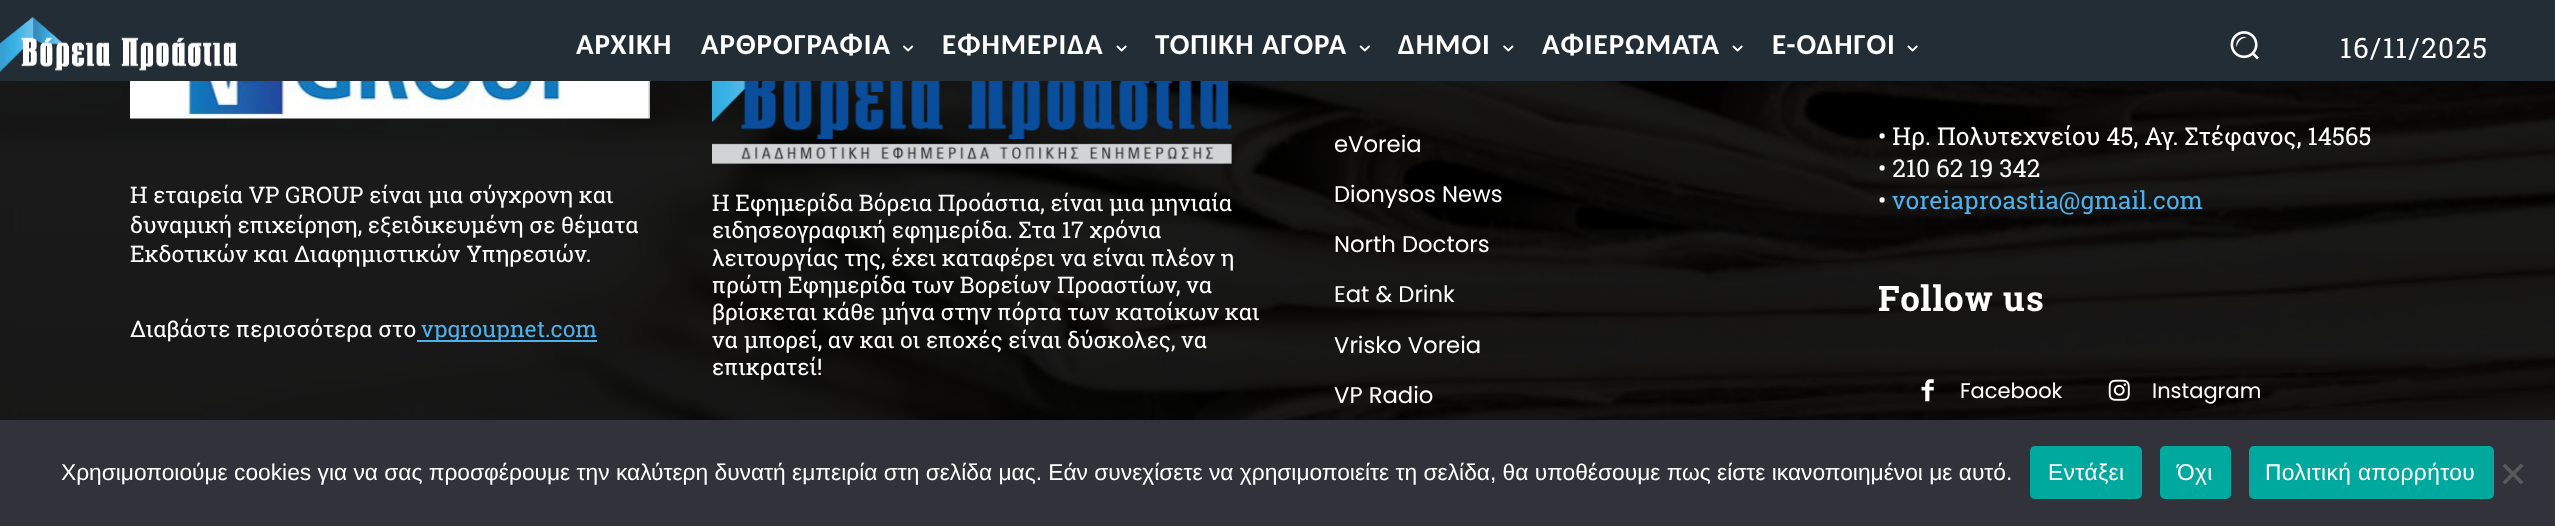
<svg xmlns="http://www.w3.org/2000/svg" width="2555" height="526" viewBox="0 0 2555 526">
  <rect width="100%" height="100%" fill="#000"/>
  <path d="M0 0h2555v81H0z" fill="#232d35"/>
  <image x="0" y="16" width="238" height="56" href="img/1.png"/>
  <image x="903" y="45" width="11" height="7" href="img/2.png"/>
  <image x="1116" y="45" width="11" height="7" href="img/3.png"/>
  <image x="1359" y="45" width="11" height="7" href="img/4.png"/>
  <image x="1503" y="45" width="11" height="7" href="img/5.png"/>
  <image x="1732" y="45" width="11" height="7" href="img/3.png"/>
  <image x="1907" y="45" width="11" height="7" href="img/3.png"/>
  <image x="2230" y="31" width="29" height="29" href="img/6.png"/>
  <image x="0" y="81" width="2555" height="339" href="img/7.png"/>
  <image x="130" y="81" width="520" height="38" href="img/8.png"/>
  <path d="M417 340h180v2H417z" fill="#4db2ec"/>
  <image x="712" y="81" width="520" height="83" href="img/9.png"/>
  <image x="1921" y="379" width="13" height="23" href="img/10.png"/>
  <image x="2108" y="379" width="22" height="22" href="img/11.png"/>
  <path d="M0 420h2555v106H0z" fill="#32323a"/>
  <rect x="2030" y="446" width="112" height="53" rx="5" fill="#00a99d"/>
  <rect x="2160" y="446" width="71" height="53" rx="5" fill="#00a99d"/>
  <rect x="2249" y="446" width="245" height="53" rx="5" fill="#00a99d"/>
  <path d="M2521 463.5L2523.5 466L2505 484.5L2502.5 482Z" fill="#59595d"/>
  <path d="M2502.5 466L2505 463.5L2523.5 482L2521 484.5Z" fill="#59595d"/>
  <g font-family="Carlito" font-size="29" font-weight="bold" letter-spacing="1" fill="#fff">
    <text x="576" y="54">ΑΡΧΙΚΗ</text>
    <text x="701" y="54">ΑΡΘΡΟΓΡΑΦΙΑ</text>
    <text x="942" y="54">ΕΦΗΜΕΡΙΔΑ</text>
    <text x="1155" y="54">ΤΟΠΙΚΗ ΑΓΟΡΑ</text>
    <text x="1398" y="54">ΔΗΜΟΙ</text>
    <text x="1542" y="54">ΑΦΙΕΡΩΜΑΤΑ</text>
    <text x="1772" y="54">E-ΟΔΗΓΟΙ</text>
  </g>
  <text x="2340" y="58" font-family="Roboto Slab" font-size="28" letter-spacing="1.4" fill="#fff">16/11/2025</text>
  <g font-family="Roboto Slab" font-size="22.75" fill="#fff">
    <text x="130" y="203">H εταιρεία VP GROUP είναι μια σύγχρονη και</text>
    <text x="130" y="233">δυναμική επιχείρηση, εξειδικευμένη σε θέματα</text>
    <text x="130" y="262">Εκδοτικών και Διαφημιστικών Υπηρεσιών.</text>
    <text x="130" y="337">Διαβάστε περισσότερα στo</text>
  </g>
  <text x="421" y="337" font-family="Roboto Slab" font-size="22.75" fill="#4db2ec">vpgroupnet.com</text>
  <g font-family="Roboto Slab" font-size="22.75" fill="#fff">
    <text x="712" y="211">Η Εφημερίδα Βόρεια Προάστια, είναι μια μηνιαία</text>
    <text x="712" y="238">ειδησεογραφική εφημερίδα. Στα 17 χρόνια</text>
    <text x="712" y="266">λειτουργίας της, έχει καταφέρει να είναι πλέον η</text>
    <text x="712" y="293">πρώτη Εφημερίδα των Βορείων Προαστίων, να</text>
    <text x="712" y="320">βρίσκεται κάθε μήνα στην πόρτα των κατοίκων και</text>
    <text x="712" y="348">να μπορεί, αν και οι εποχές είναι δύσκολες, να</text>
    <text x="712" y="375">επικρατεί!</text>
  </g>
  <g font-family="Poppins" font-size="22.75" fill="#fff">
    <text x="1334" y="152">eVoreia</text>
    <text x="1334" y="202">Dionysos News</text>
    <text x="1334" y="252">North Doctors</text>
    <text x="1334" y="302">Eat &amp; Drink</text>
    <text x="1334" y="353">Vrisko Voreia</text>
    <text x="1334" y="403">VP Radio</text>
  </g>
  <g font-family="Roboto Slab" font-size="24.5" fill="#fff">
    <text x="1878" y="145">• Ηρ. Πολυτεχνείου 45, Αγ. Στέφανος, 14565</text>
    <text x="1878" y="177">• 210 62 19 342</text>
    <text x="1878" y="209">•</text>
  </g>
  <text x="1892" y="209" font-family="Roboto Slab" font-size="24.5" fill="#4db2ec">voreiaproastia@gmail.com</text>
  <text x="1878" y="311" font-family="Roboto Slab" font-size="35" font-weight="bold" letter-spacing="0.9" fill="#fff">Follow us</text>
  <g font-family="Poppins" font-size="21" fill="#fff">
    <text x="1960" y="398">Facebook</text>
    <text x="2152" y="398">Instagram</text>
  </g>
  <text x="61" y="480" font-family="Liberation Sans" font-size="22.75" fill="#fff">Χρησιμοποιούμε cookies για να σας προσφέρουμε την καλύτερη δυνατή εμπειρία στη σελίδα μας. Εάν συνεχίσετε να χρησιμοποιείτε τη σελίδα, θα υποθέσουμε πως είστε ικανοποιημένοι με αυτό.</text>
  <g font-family="Liberation Sans" font-size="22.75" letter-spacing="0.4" fill="#fff">
    <text x="2048" y="480">Εντάξει</text>
    <text x="2177" y="480">Όχι</text>
    <text x="2265" y="480">Πολιτική απορρήτου</text>
  </g>
</svg>
